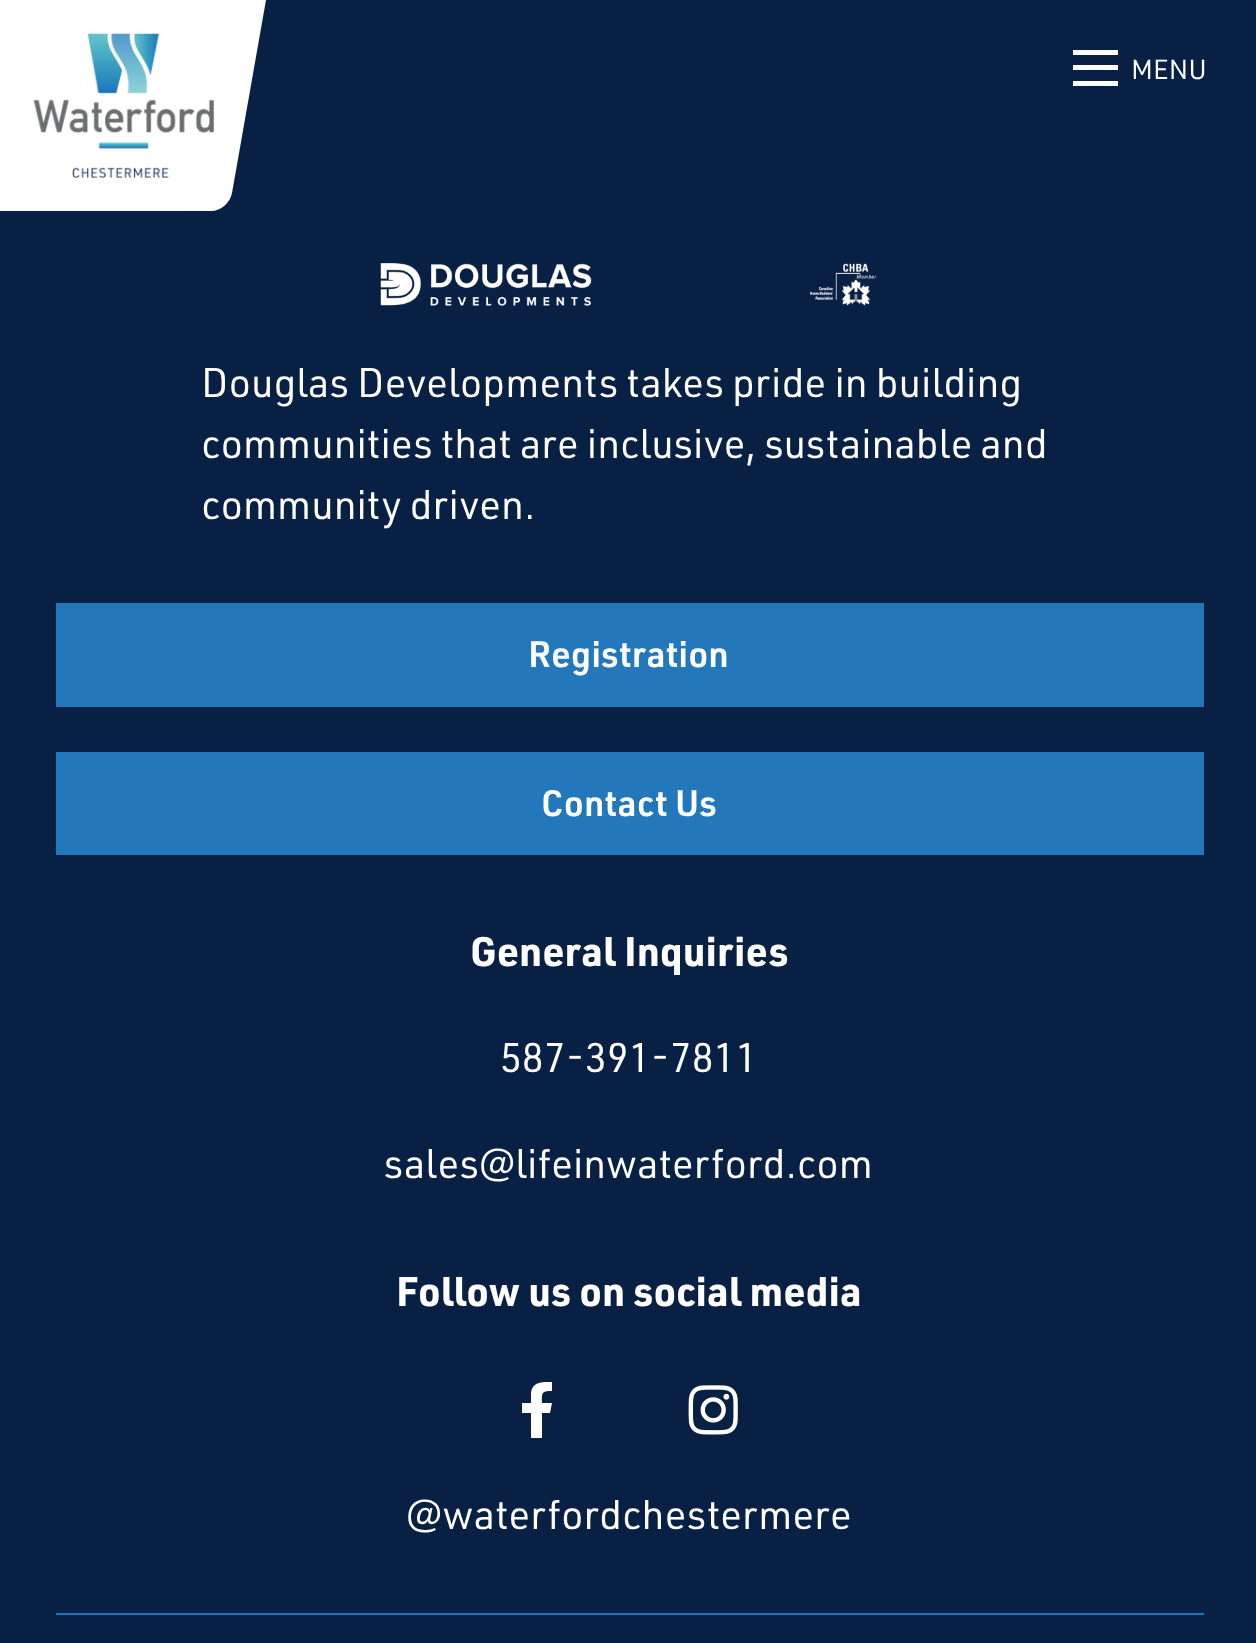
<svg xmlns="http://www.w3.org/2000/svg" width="1256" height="1643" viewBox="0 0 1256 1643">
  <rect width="100%" height="100%" fill="#092045"/>
  <path d="M-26 0H266L232 193C230 203 221 211 211 211H-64Z" fill="#fff"/>
  <image x="33" y="33" width="181" height="145" href="img/1.png"/>
  <path d="M1073 50h45v5H1073z" fill="#fff"/>
  <path d="M1073 65h45v5H1073z" fill="#fff"/>
  <path d="M1073 81h45v5H1073z" fill="#fff"/>
  <image x="380" y="263" width="497" height="43" href="img/2.png"/>
  <path d="M56 603h1148v104H56z" fill="#2378bb"/>
  <path d="M56 752h1148v103H56z" fill="#2378bb"/>
  <path d="M550 1413H542V1438H531V1413H522V1403H531V1392C533 1381 544 1382 552 1382V1391C541 1391 542 1393 542 1403H552Z" fill="#fff"/>
  <image x="688" y="1385" width="50" height="50" href="img/3.png"/>
  <path d="M56 1613h1148v2H56z" fill="#1c76bd"/>
  <text x="1131" y="79" font-family="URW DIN" font-size="27" fill="#fff">MENU</text>
  <g font-family="URW DIN" font-size="40.5" fill="#fff">
    <text x="201" y="397">Douglas Developments takes pride in building</text>
    <text x="201" y="458">communities that are inclusive, sustainable and</text>
    <text x="201" y="519">community driven.</text>
  </g>
  <g font-family="URW DIN" font-size="36" font-weight="600" fill="#fff">
    <text x="528" y="667">Registration</text>
    <text x="541" y="816">Contact Us</text>
  </g>
  <text x="470" y="966" font-family="URW DIN" font-size="40.5" font-weight="bold" fill="#fff">General Inquiries</text>
  <g font-family="URW DIN" font-size="40.5" fill="#fff">
    <text x="500" y="1072">587-391-7811</text>
    <text x="384" y="1178">sales@lifeinwaterford.com</text>
  </g>
  <text x="396" y="1306" font-family="URW DIN" font-size="40.5" font-weight="bold" fill="#fff">Follow us on social media</text>
  <text x="406" y="1529" font-family="URW DIN" font-size="40.5" fill="#fff">@waterfordchestermere</text>
</svg>
